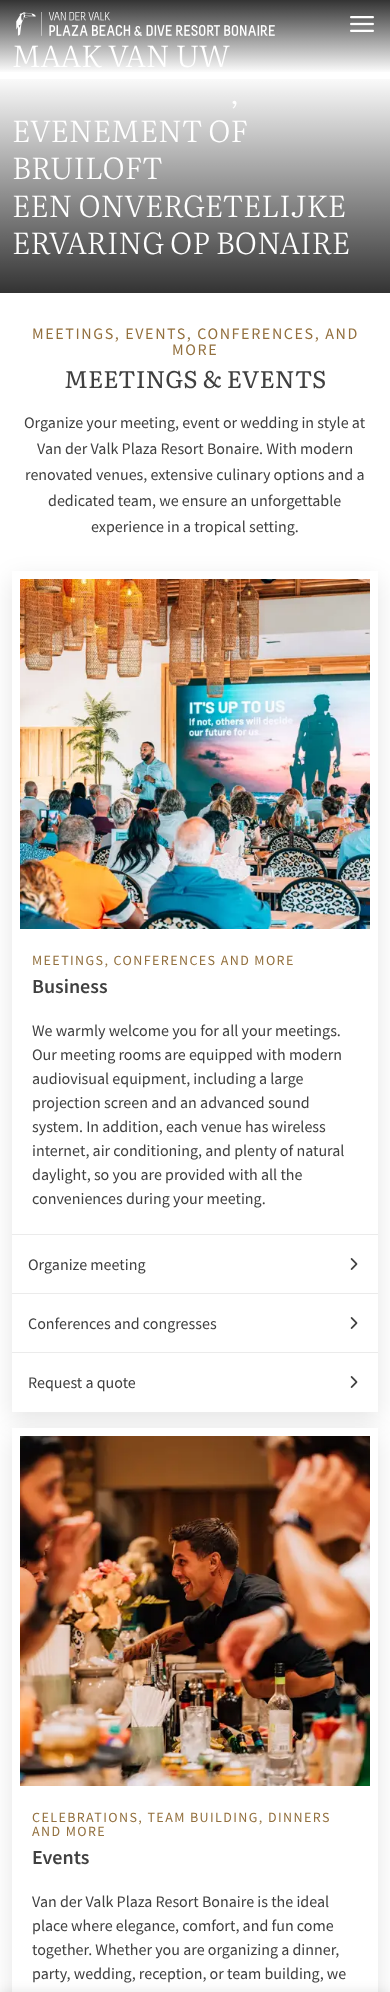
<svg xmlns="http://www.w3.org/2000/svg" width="390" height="1992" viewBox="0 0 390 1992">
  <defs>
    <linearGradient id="g1" gradientUnits="userSpaceOnUse" x1="195" y1="0" x2="195" y2="293"><stop offset="0" stop-color="#333"/><stop offset="0.25" stop-color="#fff"/></linearGradient>
    <clipPath id="clip1"><path d="M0 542H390V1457H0ZM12 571H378V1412H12Z" clip-rule="evenodd"/></clipPath>
    <linearGradient id="g2" gradientUnits="userSpaceOnUse" x1="195" y1="293" x2="195" y2="0"><stop offset="0" stop-color="#000" stop-opacity="0.8"/><stop offset="0.75" stop-color="#000" stop-opacity="0"/></linearGradient>
  </defs>
  <rect width="100%" height="100%" fill="#fff"/>
  <path d="M0 0h390v72H0z" fill="url(#g1)"/>
  <image x="16" y="12" width="259" height="24" href="img/1.png"/>
  <image x="350" y="16" width="24" height="16" href="img/2.png"/>
  <g clip-path="url(#clip1)">
    <path d="M12 579h366v841H12z" fill="#0000001a" filter="blur(12px)"/>
  </g>
  <path d="M12 1436h366v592H12z" fill="#0000001a" filter="blur(12px)"/>
  <path d="M12 1428h366v564H12z" fill="#fff"/>
  <path d="M0 1992h390v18H0z" fill="#0000001a" filter="blur(6px)"/>
  <path d="M0 79h390v214H0z" fill="url(#g2)"/>
  <image x="20" y="579" width="350" height="350" href="img/3.png"/>
  <path d="M12 1234h366v1H12z" fill="#ebebeb"/>
  <path d="M12 1293h366v1H12z" fill="#ebebeb"/>
  <image x="350" y="1258" width="8" height="12" href="img/4.png"/>
  <path d="M12 1352h366v1H12z" fill="#ebebeb"/>
  <image x="350" y="1317" width="8" height="12" href="img/4.png"/>
  <image x="350" y="1376" width="8" height="12" href="img/4.png"/>
  <image x="20" y="1436" width="350" height="350" href="img/5.png"/>
  <g font-family="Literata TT" font-size="30" font-weight="300" fill="#fff">
    <text x="12" y="67">MAAK VAN UW</text>
    <text x="230" y="104">,</text>
    <text x="12" y="142">EVENEMENT OF</text>
    <text x="12" y="179">BRUILOFT</text>
    <text x="12" y="217">EEN ONVERGETELIJKE</text>
    <text x="12" y="254">ERVARING OP BONAIRE</text>
  </g>
  <g font-family="Source Sans Pro" font-size="16" letter-spacing="1.6" fill="#93703e">
    <text x="32" y="339">MEETINGS, EVENTS, CONFERENCES, AND</text>
    <text x="172" y="355">MORE</text>
  </g>
  <text x="64" y="388" font-family="Literata TT" font-size="24" fill="#404040">MEETINGS &amp; EVENTS</text>
  <g font-family="Source Sans Pro" font-size="16" fill="#404040">
    <text x="24" y="428">Organize your meeting, event or wedding in style at</text>
    <text x="37" y="454">Van der Valk Plaza Resort Bonaire. With modern</text>
    <text x="25" y="480">renovated venues, extensive culinary options and a</text>
    <text x="48" y="506">dedicated team, we ensure an unforgettable</text>
    <text x="91" y="532">experience in a tropical setting.</text>
  </g>
  <text x="32" y="965" font-family="Source Sans Pro" font-size="14" letter-spacing="1.4" fill="#93703e">MEETINGS, CONFERENCES AND MORE</text>
  <text x="32" y="993" font-family="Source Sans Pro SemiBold" font-size="20" font-weight="600" fill="#404040">Business</text>
  <g font-family="Source Sans Pro" font-size="16" fill="#404040">
    <text x="32" y="1036">We warmly welcome you for all your meetings.</text>
    <text x="32" y="1060">Our meeting rooms are equipped with modern</text>
    <text x="32" y="1084">audiovisual equipment, including a large</text>
    <text x="32" y="1108">projection screen and an advanced sound</text>
    <text x="32" y="1132">system. In addition, each venue has wireless</text>
    <text x="32" y="1156">internet, air conditioning, and plenty of natural</text>
    <text x="32" y="1180">daylight, so you are provided with all the</text>
    <text x="32" y="1204">conveniences during your meeting.</text>
    <text x="28" y="1270">Organize meeting</text>
    <text x="28" y="1329">Conferences and congresses</text>
    <text x="28" y="1388">Request a quote</text>
  </g>
  <g font-family="Source Sans Pro" font-size="14" letter-spacing="1.4" fill="#93703e">
    <text x="32" y="1822">CELEBRATIONS, TEAM BUILDING, DINNERS</text>
    <text x="32" y="1836">AND MORE</text>
  </g>
  <text x="32" y="1864" font-family="Source Sans Pro SemiBold" font-size="20" font-weight="600" fill="#404040">Events</text>
  <g font-family="Source Sans Pro" font-size="16" fill="#404040">
    <text x="32" y="1907">Van der Valk Plaza Resort Bonaire is the ideal</text>
    <text x="32" y="1931">place where elegance, comfort, and fun come</text>
    <text x="32" y="1955">together. Whether you are organizing a dinner,</text>
    <text x="32" y="1979">party, wedding, reception, or team building, we</text>
  </g>
</svg>
